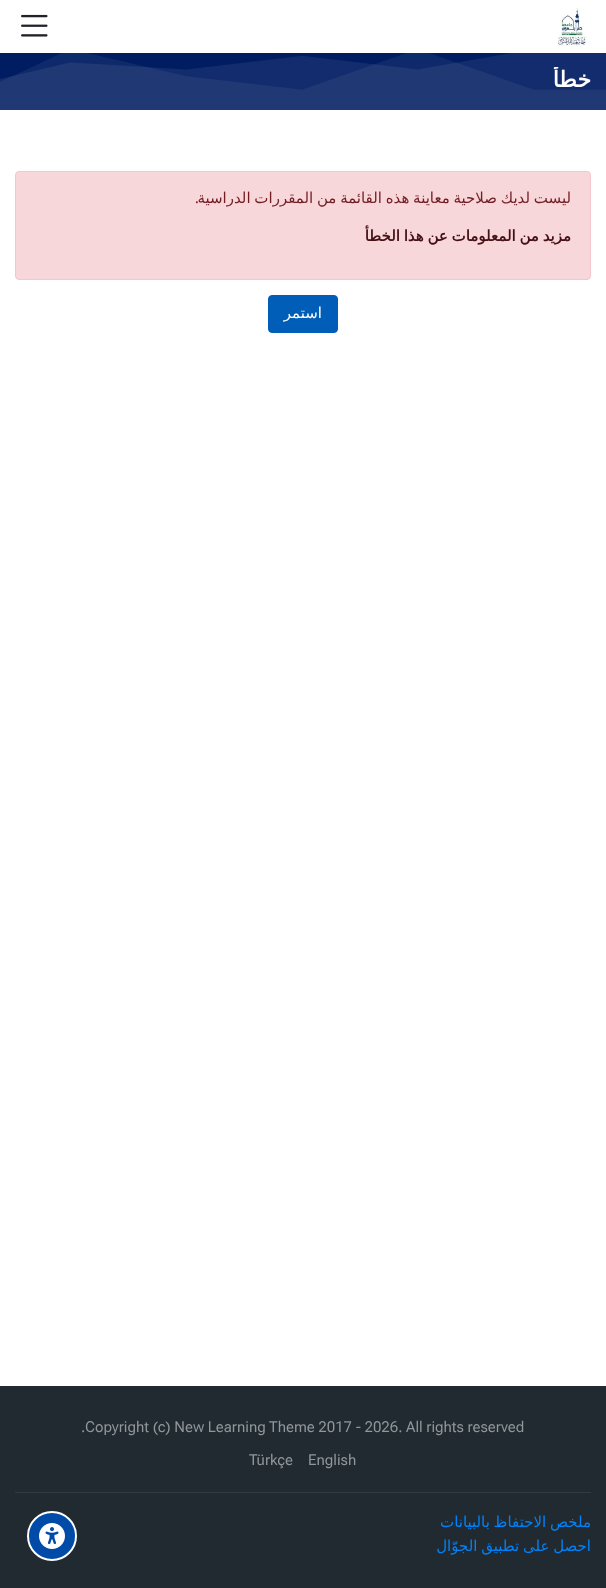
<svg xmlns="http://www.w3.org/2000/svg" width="606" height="1588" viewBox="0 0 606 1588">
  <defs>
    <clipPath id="clip1"><path d="M552 67h39v24H552z"/></clipPath>
  </defs>
  <rect width="100%" height="100%" fill="#fff"/>
  <image x="558" y="8" width="29" height="38" href="img/1.png"/>
  <image x="21" y="14" width="27" height="23" href="img/2.png"/>
  <path d="M0 53h606v57H0z" fill="#001d62"/>
  <image x="0" y="53" width="606" height="57" href="img/3.png"/>
  <rect x="15.5" y="171.5" width="575" height="108" rx="3.5" fill="#f8d7da" stroke="#f5c6cb"/>
  <rect x="268.5" y="295.5" width="69" height="37" rx="3.5" fill="#005eb8" stroke="#005eb8"/>
  <path d="M0 1386h606v202H0z" fill="#212a31"/>
  <path d="M15 1492h576v1H15z" fill="#333b41"/>
  <circle cx="52" cy="1536" r="24" fill="#004ba8" stroke="#fff" stroke-width="2"/>
  <image x="39" y="1523" width="26" height="26" href="img/4.png"/>
  <g clip-path="url(#clip1)">
    <text x="591" y="87" font-family="DejaVu Sans" font-size="22" font-weight="bold" direction="rtl" fill="#fff">خطأ</text>
  </g>
  <text x="571" y="203" word-spacing="-1" font-family="DejaVu Sans" font-size="15" direction="rtl" fill="#721c24">ليست لديك صلاحية معاينة هذه القائمة من المقررات الدراسية</text>
  <text x="199" y="203" font-family="Roboto Flex" font-size="15" direction="rtl" fill="#721c24">.</text>
  <text x="571" y="241" word-spacing="-1" font-family="DejaVu Sans" font-size="15" font-weight="bold" direction="rtl" fill="#451116">مزيد من المعلومات عن هذا الخطأ</text>
  <text x="322" y="318" font-family="DejaVu Sans" font-size="15" direction="rtl" fill="#fff">استمر</text>
  <g font-family="'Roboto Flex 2'" font-size="15" fill="#909699">
    <text x="85" y="1432">Copyright (c) New Learning Theme 2017 - 2026. All rights reserved</text>
    <text x="81" y="1432">.</text>
    <text x="308" y="1465">English</text>
    <text x="249" y="1465">Türkçe</text>
  </g>
  <g font-family="DejaVu Sans" font-size="15" direction="rtl" fill="#0083fa">
    <text x="591" y="1527" word-spacing="-1">ملخص الاحتفاظ بالبيانات</text>
    <text x="591" y="1551" word-spacing="-1">احصل على تطبيق الجوّال</text>
  </g>
</svg>
